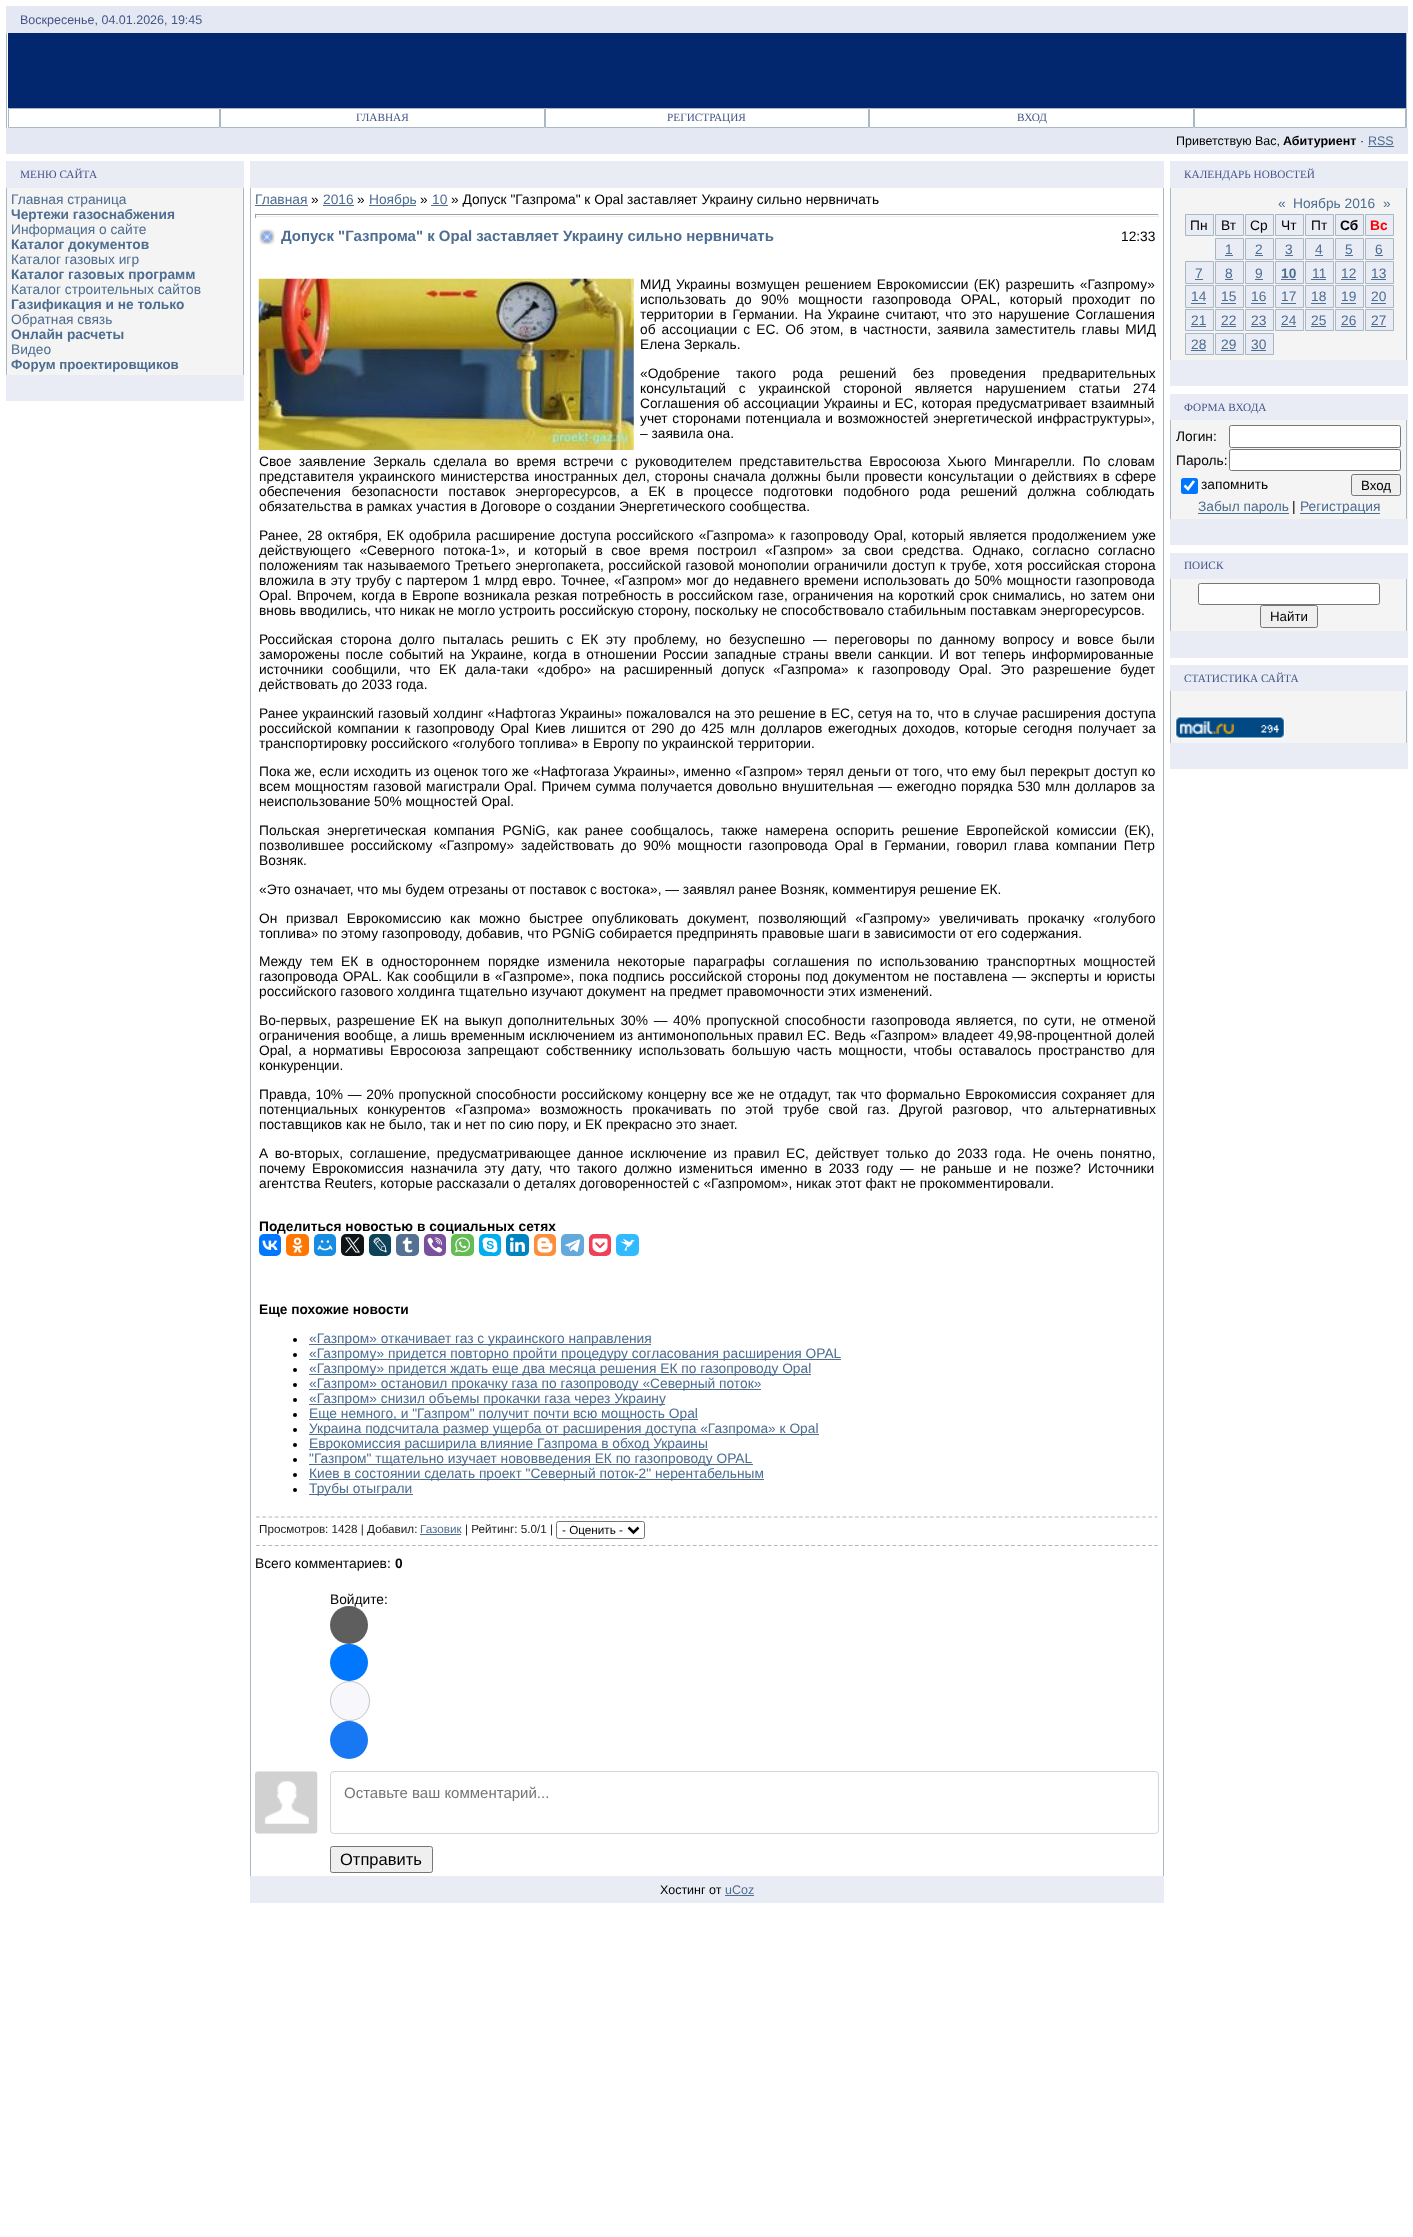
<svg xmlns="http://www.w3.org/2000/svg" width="1413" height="2237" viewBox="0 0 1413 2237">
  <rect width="100%" height="100%" fill="#fff"/>
  <path d="M6 6h1402v27H6z" fill="#e4e8f3"/>
  <path d="M1406 33h1v95H1406z" fill="#a9b8c2"/>
  <path d="M6 33h1v95H6z" fill="#a9b8c2"/>
  <path d="M8 33h1398v75H8z" fill="#03276e"/>
  <path d="M8.5 108.5h211v19H8.5z" fill="none" stroke="#a9b8c2"/>
  <path d="M220.5 108.5h324v19H220.5z" fill="none" stroke="#a9b8c2"/>
  <path d="M545.5 108.5h323v19H545.5z" fill="none" stroke="#a9b8c2"/>
  <path d="M869.5 108.5h324v19H869.5z" fill="none" stroke="#a9b8c2"/>
  <path d="M1194.5 108.5h211v19H1194.5z" fill="none" stroke="#a9b8c2"/>
  <path d="M6 128h1402v26H6z" fill="#e4e8f3"/>
  <path d="M1368 146h26v1H1368z" fill="#4d6d91"/>
  <path d="M6 161h238v27H6z" fill="#e9ecf5"/>
  <path d="M7 188h236v187H7z" fill="#f4f4f4"/>
  <path d="M243 188h1v187H243z" fill="#a9b8c2"/>
  <path d="M6 188h1v187H6z" fill="#a9b8c2"/>
  <path d="M6 375h238v26H6z" fill="#e9ecf5"/>
  <path d="M250 161h914v27H250z" fill="#e9ecf5"/>
  <path d="M1163 188h1v1688H1163z" fill="#a9b8c2"/>
  <path d="M250 188h1v1688H250z" fill="#a9b8c2"/>
  <path d="M255 205h53v1H255z" fill="#4d6d91"/>
  <path d="M323 205h31v1H323z" fill="#4d6d91"/>
  <path d="M369 205h47v1H369z" fill="#4d6d91"/>
  <path d="M431 205h17v1H431z" fill="#4d6d91"/>
  <path d="M255 214h904v1H255z" fill="#9f9f9f"/>
  <path d="M1158 214h1v4H1158z" fill="#eee"/>
  <path d="M255 216h904v1H255z" fill="#eee"/>
  <path d="M255 214h1v4H255z" fill="#9f9f9f"/>
  <image x="259" y="229" width="16" height="16" href="img/1.png"/>
  <image x="258" y="278" width="376" height="172" href="img/2.png"/>
  <rect x="259" y="1234" width="22" height="22" rx="5" fill="#07f"/>
  <image x="262" y="1240" width="16" height="10" href="img/3.png"/>
  <rect x="286" y="1234" width="23" height="22" rx="5" fill="#f70"/>
  <image x="292" y="1237" width="11" height="16" href="img/4.png"/>
  <rect x="314" y="1234" width="22" height="22" rx="5" fill="#168de2"/>
  <image x="317" y="1240" width="16" height="11" href="img/5.png"/>
  <rect x="341" y="1234" width="23" height="22" rx="5" fill="#0f1419"/>
  <image x="345" y="1237" width="15" height="16" href="img/6.png"/>
  <rect x="369" y="1234" width="22" height="22" rx="5" fill="#0d425a"/>
  <image x="373" y="1237" width="14" height="16" href="img/7.png"/>
  <rect x="396" y="1234" width="23" height="22" rx="5" fill="#547093"/>
  <image x="402" y="1237" width="11" height="16" href="img/8.png"/>
  <rect x="424" y="1234" width="22" height="22" rx="5" fill="#7b519d"/>
  <image x="427" y="1237" width="16" height="16" href="img/9.png"/>
  <rect x="451" y="1234" width="23" height="22" rx="5" fill="#65bc54"/>
  <image x="455" y="1237" width="15" height="16" href="img/10.png"/>
  <rect x="479" y="1234" width="22" height="22" rx="5" fill="#00aff0"/>
  <image x="482" y="1237" width="16" height="16" href="img/11.png"/>
  <rect x="506" y="1234" width="23" height="22" rx="5" fill="#0083be"/>
  <image x="510" y="1237" width="15" height="15" href="img/12.png"/>
  <rect x="534" y="1234" width="22" height="22" rx="5" fill="#fb8f3d"/>
  <image x="537" y="1237" width="16" height="16" href="img/13.png"/>
  <rect x="561" y="1234" width="23" height="22" rx="5" fill="#64a9dc"/>
  <image x="565" y="1239" width="15" height="13" href="img/14.png"/>
  <rect x="589" y="1234" width="22" height="22" rx="5" fill="#ee4056"/>
  <image x="592" y="1238" width="16" height="15" href="img/15.png"/>
  <rect x="616" y="1234" width="23" height="22" rx="5" fill="#30baff"/>
  <image x="620" y="1238" width="15" height="13" href="img/16.png"/>
  <circle cx="295" cy="1340" r="2" fill="#000"/>
  <path d="M309 1344h342v1H309z" fill="#4d6d91"/>
  <circle cx="295" cy="1355" r="2" fill="#000"/>
  <path d="M309 1359h532v1H309z" fill="#4d6d91"/>
  <circle cx="295" cy="1370" r="2" fill="#000"/>
  <path d="M309 1374h502v1H309z" fill="#4d6d91"/>
  <circle cx="295" cy="1385" r="2" fill="#000"/>
  <path d="M309 1389h452v1H309z" fill="#4d6d91"/>
  <circle cx="295" cy="1400" r="2" fill="#000"/>
  <path d="M309 1404h356v1H309z" fill="#4d6d91"/>
  <circle cx="295" cy="1415" r="2" fill="#000"/>
  <path d="M309 1419h389v1H309z" fill="#4d6d91"/>
  <circle cx="295" cy="1430" r="2" fill="#000"/>
  <path d="M309 1434h510v1H309z" fill="#4d6d91"/>
  <circle cx="295" cy="1445" r="2" fill="#000"/>
  <path d="M309 1449h399v1H309z" fill="#4d6d91"/>
  <circle cx="295" cy="1460" r="2" fill="#000"/>
  <path d="M309 1464h444v1H309z" fill="#4d6d91"/>
  <circle cx="295" cy="1475" r="2" fill="#000"/>
  <path d="M309 1479h455v1H309z" fill="#4d6d91"/>
  <circle cx="295" cy="1490" r="2" fill="#000"/>
  <path d="M309 1494h104v1H309z" fill="#4d6d91"/>
  <path d="M256 1517H1157.5" fill="none" stroke="#a9b8c2" stroke-width="1.2" stroke-dasharray="3.75 2.49"/>
  <path d="M256 1545.5H1157.5" fill="none" stroke="#a9b8c2" stroke-width="1.2" stroke-dasharray="3.75 2.49"/>
  <path d="M420 1534h41v1H420z" fill="#4d6d91"/>
  <rect x="556.5" y="1521.5" width="88" height="17" rx="2" fill="none" stroke="#767676"/>
  <path d="M628.5 1527.5L633.5 1532.5L638.5 1527.5" fill="none" stroke="#000" stroke-width="2.5"/>
  <rect x="330" y="1644" width="38" height="37" rx="18.5" fill="#07f"/>
  <circle cx="350" cy="1701" r="19.5" fill="#f8f8fc" stroke="#c4c4c4"/>
  <circle cx="349" cy="1740" r="19" fill="#1877f2"/>
  <image x="255" y="1771" width="63" height="63" href="img/17.png"/>
  <rect x="330.5" y="1771.5" width="828" height="62" rx="3.5" fill="none" stroke="#d6d6d6"/>
  <rect x="330.5" y="1846.5" width="102" height="26" rx="2" fill="#efefef" stroke="#767676"/>
  <path d="M250 1876h914v27H250z" fill="#e9ecf5"/>
  <path d="M725 1895h29v1H725z" fill="#4d6d91"/>
  <path d="M1170 161h238v27H1170z" fill="#e9ecf5"/>
  <path d="M1171 188h237v172H1171z" fill="#f4f4f4"/>
  <path d="M1406 188h1v172H1406z" fill="#a9b8c2"/>
  <path d="M1170 188h1v172H1170z" fill="#a9b8c2"/>
  <path d="M1185.5 214.5h28v21H1185.5z" fill="#e9ecf5" stroke="#a9b8c2"/>
  <path d="M1215.5 214.5h28v21H1215.5z" fill="#e9ecf5" stroke="#a9b8c2"/>
  <path d="M1245.5 214.5h28v21H1245.5z" fill="#e9ecf5" stroke="#a9b8c2"/>
  <path d="M1275.5 214.5h28v21H1275.5z" fill="#e9ecf5" stroke="#a9b8c2"/>
  <path d="M1305.5 214.5h28v21H1305.5z" fill="#e9ecf5" stroke="#a9b8c2"/>
  <path d="M1335.5 214.5h28v21H1335.5z" fill="#e9ecf5" stroke="#a9b8c2"/>
  <path d="M1365.5 214.5h28v21H1365.5z" fill="#e9ecf5" stroke="#a9b8c2"/>
  <path d="M1215.5 238.5h28v21H1215.5z" fill="#e9ecf5" stroke="#a9b8c2"/>
  <path d="M1225 255h8v1H1225z" fill="#4d6d91"/>
  <path d="M1245.5 238.5h28v21H1245.5z" fill="#e9ecf5" stroke="#a9b8c2"/>
  <path d="M1255 255h8v1H1255z" fill="#4d6d91"/>
  <path d="M1275.5 238.5h28v21H1275.5z" fill="#e9ecf5" stroke="#a9b8c2"/>
  <path d="M1285 255h8v1H1285z" fill="#4d6d91"/>
  <path d="M1305.5 238.5h28v21H1305.5z" fill="#e9ecf5" stroke="#a9b8c2"/>
  <path d="M1315 255h8v1H1315z" fill="#4d6d91"/>
  <path d="M1335.5 238.5h28v21H1335.5z" fill="#e9ecf5" stroke="#a9b8c2"/>
  <path d="M1345 255h8v1H1345z" fill="#4d6d91"/>
  <path d="M1365.5 238.5h28v21H1365.5z" fill="#e9ecf5" stroke="#a9b8c2"/>
  <path d="M1375 255h8v1H1375z" fill="#4d6d91"/>
  <path d="M1185.5 261.5h28v22H1185.5z" fill="#e9ecf5" stroke="#a9b8c2"/>
  <path d="M1195 279h8v1H1195z" fill="#4d6d91"/>
  <path d="M1215.5 261.5h28v22H1215.5z" fill="#e9ecf5" stroke="#a9b8c2"/>
  <path d="M1225 279h8v1H1225z" fill="#4d6d91"/>
  <path d="M1245.5 261.5h28v22H1245.5z" fill="#e9ecf5" stroke="#a9b8c2"/>
  <path d="M1255 279h8v1H1255z" fill="#4d6d91"/>
  <path d="M1275.5 261.5h28v22H1275.5z" fill="#e9ecf5" stroke="#a9b8c2"/>
  <path d="M1281 279h15v1H1281z" fill="#4d6d91"/>
  <path d="M1305.5 261.5h28v22H1305.5z" fill="#e9ecf5" stroke="#a9b8c2"/>
  <path d="M1311 279h15v1H1311z" fill="#4d6d91"/>
  <path d="M1335.5 261.5h28v22H1335.5z" fill="#e9ecf5" stroke="#a9b8c2"/>
  <path d="M1341 279h15v1H1341z" fill="#4d6d91"/>
  <path d="M1365.5 261.5h28v22H1365.5z" fill="#e9ecf5" stroke="#a9b8c2"/>
  <path d="M1371 279h15v1H1371z" fill="#4d6d91"/>
  <path d="M1185.5 285.5h28v22H1185.5z" fill="#e9ecf5" stroke="#a9b8c2"/>
  <path d="M1191 303h15v1H1191z" fill="#4d6d91"/>
  <path d="M1215.5 285.5h28v22H1215.5z" fill="#e9ecf5" stroke="#a9b8c2"/>
  <path d="M1221 303h15v1H1221z" fill="#4d6d91"/>
  <path d="M1245.5 285.5h28v22H1245.5z" fill="#e9ecf5" stroke="#a9b8c2"/>
  <path d="M1251 303h15v1H1251z" fill="#4d6d91"/>
  <path d="M1275.5 285.5h28v22H1275.5z" fill="#e9ecf5" stroke="#a9b8c2"/>
  <path d="M1281 303h15v1H1281z" fill="#4d6d91"/>
  <path d="M1305.5 285.5h28v22H1305.5z" fill="#e9ecf5" stroke="#a9b8c2"/>
  <path d="M1311 303h15v1H1311z" fill="#4d6d91"/>
  <path d="M1335.5 285.5h28v22H1335.5z" fill="#e9ecf5" stroke="#a9b8c2"/>
  <path d="M1341 303h15v1H1341z" fill="#4d6d91"/>
  <path d="M1365.5 285.5h28v22H1365.5z" fill="#e9ecf5" stroke="#a9b8c2"/>
  <path d="M1371 303h15v1H1371z" fill="#4d6d91"/>
  <path d="M1185.5 309.5h28v21H1185.5z" fill="#e9ecf5" stroke="#a9b8c2"/>
  <path d="M1191 326h15v1H1191z" fill="#4d6d91"/>
  <path d="M1215.5 309.5h28v21H1215.5z" fill="#e9ecf5" stroke="#a9b8c2"/>
  <path d="M1221 326h15v1H1221z" fill="#4d6d91"/>
  <path d="M1245.5 309.5h28v21H1245.5z" fill="#e9ecf5" stroke="#a9b8c2"/>
  <path d="M1251 326h15v1H1251z" fill="#4d6d91"/>
  <path d="M1275.5 309.5h28v21H1275.5z" fill="#e9ecf5" stroke="#a9b8c2"/>
  <path d="M1281 326h15v1H1281z" fill="#4d6d91"/>
  <path d="M1305.5 309.5h28v21H1305.5z" fill="#e9ecf5" stroke="#a9b8c2"/>
  <path d="M1311 326h15v1H1311z" fill="#4d6d91"/>
  <path d="M1335.5 309.5h28v21H1335.5z" fill="#e9ecf5" stroke="#a9b8c2"/>
  <path d="M1341 326h15v1H1341z" fill="#4d6d91"/>
  <path d="M1365.5 309.5h28v21H1365.5z" fill="#e9ecf5" stroke="#a9b8c2"/>
  <path d="M1371 326h15v1H1371z" fill="#4d6d91"/>
  <path d="M1185.5 333.5h28v21H1185.5z" fill="#e9ecf5" stroke="#a9b8c2"/>
  <path d="M1191 350h15v1H1191z" fill="#4d6d91"/>
  <path d="M1215.5 333.5h28v21H1215.5z" fill="#e9ecf5" stroke="#a9b8c2"/>
  <path d="M1221 350h15v1H1221z" fill="#4d6d91"/>
  <path d="M1245.5 333.5h28v21H1245.5z" fill="#e9ecf5" stroke="#a9b8c2"/>
  <path d="M1251 350h15v1H1251z" fill="#4d6d91"/>
  <path d="M1170 360h238v26H1170z" fill="#e9ecf5"/>
  <path d="M1170 394h238v26H1170z" fill="#e9ecf5"/>
  <path d="M1171 420h237v99H1171z" fill="#f4f4f4"/>
  <path d="M1406 420h1v99H1406z" fill="#a9b8c2"/>
  <path d="M1170 420h1v99H1170z" fill="#a9b8c2"/>
  <rect x="1229.5" y="425.5" width="171" height="22" rx="2" fill="#fff" stroke="#767676"/>
  <rect x="1229.5" y="449.5" width="171" height="21" rx="2" fill="#fff" stroke="#767676"/>
  <rect x="1181" y="478" width="17" height="16" rx="2.5" fill="#0075ff"/>
  <path d="M1184.5 485.5L1188 489L1194 481" fill="none" stroke="#fff" stroke-width="2.6"/>
  <rect x="1351.5" y="474.5" width="49" height="21" rx="2" fill="#efefef" stroke="#767676"/>
  <path d="M1198 513h91v1H1198z" fill="#4d6d91"/>
  <path d="M1300 513h80v1H1300z" fill="#4d6d91"/>
  <path d="M1170 519h238v26H1170z" fill="#e9ecf5"/>
  <path d="M1170 553h238v26H1170z" fill="#e9ecf5"/>
  <path d="M1171 579h237v52H1171z" fill="#f4f4f4"/>
  <path d="M1406 579h1v52H1406z" fill="#a9b8c2"/>
  <path d="M1170 579h1v52H1170z" fill="#a9b8c2"/>
  <rect x="1198.5" y="583.5" width="181" height="21" rx="2" fill="#fff" stroke="#767676"/>
  <rect x="1260.5" y="605.5" width="57" height="22" rx="2" fill="#efefef" stroke="#767676"/>
  <path d="M1170 631h238v27H1170z" fill="#e9ecf5"/>
  <path d="M1170 665h238v26H1170z" fill="#e9ecf5"/>
  <path d="M1171 691h237v52H1171z" fill="#f4f4f4"/>
  <path d="M1406 691h1v52H1406z" fill="#a9b8c2"/>
  <path d="M1170 691h1v52H1170z" fill="#a9b8c2"/>
  <image x="1175" y="716" width="110" height="23" href="img/18.png"/>
  <path d="M1170 743h238v26H1170z" fill="#e9ecf5"/>
  <text x="20" y="24" font-family="Liberation Sans" font-size="12.5" fill="#458">Воскресенье, 04.01.2026, 19:45</text>
  <g font-family="Liberation Serif" font-size="11.25" fill="#458">
    <text x="356" y="121">ГЛАВНАЯ</text>
    <text x="667" y="121">РЕГИСТРАЦИЯ</text>
    <text x="1017" y="121">ВХОД</text>
  </g>
  <text x="1176" y="145" font-family="Liberation Sans" font-size="12.5" fill="#000">Приветствую Вас,</text>
  <text x="1283" y="145" font-family="Liberation Sans" font-size="12.5" font-weight="bold" fill="#000">Абитуриент</text>
  <text x="1360" y="145" font-family="Liberation Sans" font-size="12.5" fill="#000">·</text>
  <text x="1368" y="145" font-family="Liberation Sans" font-size="12.5" fill="#4d6d91">RSS</text>
  <text x="20" y="178" font-family="Liberation Serif" font-size="11.25" fill="#458">МЕНЮ САЙТА</text>
  <text x="11" y="204" font-family="Liberation Sans" font-size="13.75" fill="#4d6d91">Главная страница</text>
  <text x="11" y="219" font-family="Liberation Sans" font-size="13.75" font-weight="bold" fill="#4d6d91">Чертежи газоснабжения</text>
  <text x="11" y="234" font-family="Liberation Sans" font-size="13.75" fill="#4d6d91">Информация о сайте</text>
  <text x="11" y="249" font-family="Liberation Sans" font-size="13.75" font-weight="bold" fill="#4d6d91">Каталог документов</text>
  <text x="11" y="264" font-family="Liberation Sans" font-size="13.75" fill="#4d6d91">Каталог газовых игр</text>
  <text x="11" y="279" font-family="Liberation Sans" font-size="13.75" font-weight="bold" fill="#4d6d91">Каталог газовых программ</text>
  <text x="11" y="294" font-family="Liberation Sans" font-size="13.75" fill="#4d6d91">Каталог строительных сайтов</text>
  <text x="11" y="309" font-family="Liberation Sans" font-size="13.75" font-weight="bold" fill="#4d6d91">Газификация и не только</text>
  <text x="11" y="324" font-family="Liberation Sans" font-size="13.75" fill="#4d6d91">Обратная связь</text>
  <text x="11" y="339" font-family="Liberation Sans" font-size="13.75" font-weight="bold" fill="#4d6d91">Онлайн расчеты</text>
  <text x="11" y="354" font-family="Liberation Sans" font-size="13.75" fill="#4d6d91">Видео</text>
  <text x="11" y="369" font-family="Liberation Sans" font-size="13.3" font-weight="bold" fill="#4d6d91">Форум проектировщиков</text>
  <text x="255" y="204" font-family="Liberation Sans" font-size="13.75" fill="#4d6d91">Главная</text>
  <text x="311" y="204" font-family="Liberation Sans" font-size="13.75" fill="#000">»</text>
  <text x="323" y="204" font-family="Liberation Sans" font-size="13.75" fill="#4d6d91">2016</text>
  <text x="357" y="204" font-family="Liberation Sans" font-size="13.75" fill="#000">»</text>
  <text x="369" y="204" font-family="Liberation Sans" font-size="13.75" fill="#4d6d91">Ноябрь</text>
  <text x="420" y="204" font-family="Liberation Sans" font-size="13.75" fill="#000">»</text>
  <text x="432" y="204" font-family="Liberation Sans" font-size="13.75" fill="#4d6d91">10</text>
  <text x="451" y="204" font-family="Liberation Sans" font-size="13.75" fill="#000">» Допуск "Газпрома" к Opal заставляет Украину сильно нервничать</text>
  <text x="281" y="241" font-family="Liberation Sans" font-size="15" font-weight="bold" fill="#4d6d91">Допуск "Газпрома" к Opal заставляет Украину сильно нервничать</text>
  <g font-family="Liberation Sans" font-size="13.75" fill="#000">
    <text x="1121" y="241">12:33</text>
    <text x="640" y="289" word-spacing="1.5">МИД Украины возмущен решением Еврокомиссии (ЕК) разрешить «Газпрому»</text>
    <text x="640" y="304" word-spacing="5.75">использовать до 90% мощности газопровода OPAL, который проходит по</text>
    <text x="640" y="319" word-spacing="2">территории в Германии. На Украине считают, что это нарушение Соглашения</text>
    <text x="640" y="334" word-spacing="2.25">об ассоциации с ЕС. Об этом, в частности, заявила заместитель главы МИД</text>
    <text x="640" y="349">Елена Зеркаль.</text>
    <text x="640" y="378" word-spacing="12.5">«Одобрение такого рода решений без проведения предварительных</text>
    <text x="640" y="393" word-spacing="9">консультаций с украинской стороной является нарушением статьи 274</text>
    <text x="640" y="408" word-spacing="0.5">Соглашения об ассоциации Украины и ЕС, которая предусматривает взаимный</text>
    <text x="640" y="423" word-spacing="1">учет сторонами потенциала и возможностей энергетической инфраструктуры»,</text>
    <text x="640" y="438">– заявила она.</text>
    <text x="259" y="466" word-spacing="3.6">Свое заявление Зеркаль сделала во время встречи с руководителем представительства Евросоюза Хьюго Мингарелли. По словам</text>
    <text x="259" y="481" word-spacing="1.25">представителя украинского министерства иностранных дел, стороны сначала должны были провести консультации о действиях в сфере</text>
    <text x="259" y="496" word-spacing="6.5">обеспечения безопасности поставок энергоресурсов, а ЕК в процессе подготовки подобного рода решений должна соблюдать</text>
    <text x="259" y="511">обязательства в рамках участия в Договоре о создании Энергетического сообщества.</text>
    <text x="259" y="540" word-spacing="1.25">Ранее, 28 октября, ЕК одобрила расширение доступа российского «Газпрома» к газопроводу Opal, который является продолжением уже</text>
    <text x="259" y="555" word-spacing="4.75">действующего «Северного потока-1», и который в свое время построил «Газпром» за свои средства. Однако, согласно согласно</text>
    <text x="259" y="570" word-spacing="0.7">положениям так называемого Третьего энергопакета, российской газовой монополии ограничили доступ к трубе, хотя российская сторона</text>
    <text x="259" y="585" word-spacing="0.8">вложила в эту трубу с партером 1 млрд евро. Точнее, «Газпром» мог до недавнего времени использовать до 50% мощности газопровода</text>
    <text x="259" y="600" word-spacing="1">Opal. Впрочем, когда в Европе возникала резкая потребность в российском газе, ограничения на короткий срок снимались, но затем они</text>
    <text x="259" y="615">вновь вводились, что никак не могло устроить российскую сторону, поскольку не способствовало стабильным поставкам энергоресурсов.</text>
    <text x="259" y="644" word-spacing="3.9">Российская сторона долго пыталась решить с ЕК эту проблему, но безуспешно — переговоры по данному вопросу и вовсе были</text>
    <text x="259" y="659" word-spacing="2.25">заморожены после событий на Украине, когда в отношении России западные страны ввели санкции. И вот теперь информированные</text>
    <text x="259" y="674" word-spacing="4.9">источники сообщили, что ЕК дала-таки «добро» на расширенный допуск «Газпрома» к газопроводу Opal. Это разрешение будет</text>
    <text x="259" y="689">действовать до 2033 года.</text>
    <text x="259" y="718" word-spacing="0.2">Ранее украинский газовый холдинг «Нафтогаз Украины» пожаловался на это решение в ЕС, сетуя на то, что в случае расширения доступа</text>
    <text x="259" y="733" word-spacing="1.9">российской компании к газопроводу Opal Киев лишится от 290 до 425 млн долларов ежегодных доходов, которые сегодня получает за</text>
    <text x="259" y="748">транспортировку российского «голубого топлива» в Европу по украинской территории.</text>
    <text x="259" y="776" word-spacing="0.25">Пока же, если исходить из оценок того же «Нафтогаза Украины», именно «Газпром» терял деньги от того, что ему был перекрыт доступ ко</text>
    <text x="259" y="791" word-spacing="0.75">всем мощностям газовой магистрали</text>
    <text x="504" y="791" word-spacing="0.75">Opal. Причем сумма получается довольно внушительная — ежегодно порядка 530 млн долларов за</text>
    <text x="259" y="806">неиспользование 50% мощностей Opal.</text>
    <text x="259" y="835" word-spacing="3.75">Польская энергетическая компания PGNiG, как ранее сообщалось, также намерена оспорить решение Европейской комиссии (ЕК),</text>
    <text x="259" y="850" word-spacing="2.9">позволившее российскому «Газпрому» задействовать до 90% мощности газопровода Opal в Германии, говорил глава компании Петр</text>
    <text x="259" y="865">Возняк.</text>
    <text x="259" y="894">«Это означает, что мы будем отрезаны от поставок с востока», — заявлял ранее Возняк, комментируя решение ЕК.</text>
    <text x="259" y="923" word-spacing="5">Он призвал Еврокомиссию как можно быстрее опубликовать документ, позволяющий «Газпрому» увеличивать прокачку «голубого</text>
    <text x="259" y="938">топлива» по этому газопроводу, добавив, что PGNiG собирается предпринять правовые шаги в зависимости от его содержания.</text>
    <text x="259" y="966" word-spacing="4">Между тем ЕК в одностороннем порядке изменила некоторые параграфы соглашения по использованию транспортных мощностей</text>
    <text x="259" y="981" word-spacing="0.9">газопровода OPAL. Как сообщили в «Газпроме», пока подпись российской стороны под документом не поставлена — эксперты и юристы</text>
    <text x="259" y="996">российского газового холдинга тщательно изучают документ на предмет правомочности этих изменений.</text>
    <text x="259" y="1025" word-spacing="1.9">Во-первых, разрешение ЕК на выкуп дополнительных 30% — 40% пропускной способности газопровода является, по сути, не отменой</text>
    <text x="259" y="1040" word-spacing="0.3">ограничения вообще, а лишь временным исключением из антимонопольных правил ЕС. Ведь «Газпром» владеет 49,98-процентной долей</text>
    <text x="259" y="1055" word-spacing="2.75">Opal, а нормативы Евросоюза запрещают собственнику использовать большую часть мощности, чтобы оставалось пространство для</text>
    <text x="259" y="1070">конкуренции.</text>
    <text x="259" y="1099" word-spacing="0.9">Правда, 10% — 20% пропускной способности российскому концерну все же не отдадут, так что формально Еврокомиссия сохраняет для</text>
    <text x="259" y="1114" word-spacing="5.6">потенциальных конкурентов «Газпрома» возможность прокачивать по этой трубе свой газ. Другой разговор, что альтернативных</text>
    <text x="259" y="1129">поставщиков как не было, так и нет по сию пору, и ЕК прекрасно это знает.</text>
    <text x="259" y="1158" word-spacing="2.75">А во-вторых, соглашение, предусматривающее данное исключение из правил ЕС, действует только до 2033 года. Не очень понятно,</text>
    <text x="259" y="1173" word-spacing="3.1">почему Еврокомиссия назначила эту дату, что такого должно измениться именно в 2033 году — не раньше и не позже? Источники</text>
    <text x="259" y="1188">агентства Reuters, которые рассказали о деталях договоренностей с «Газпромом», никак этот факт не прокомментировали.</text>
  </g>
  <g font-family="Liberation Sans" font-size="13.75" font-weight="bold" fill="#000">
    <text x="259" y="1231">Поделиться новостью в социальных сетях</text>
    <text x="259" y="1314">Еще похожие новости</text>
  </g>
  <g font-family="Liberation Sans" font-size="13.75" fill="#4d6d91">
    <text x="309" y="1343">«Газпром» откачивает газ с украинского направления</text>
    <text x="309" y="1358">«Газпрому» придется повторно пройти процедуру согласования расширения OPAL</text>
    <text x="309" y="1373">«Газпрому» придется ждать еще два месяца решения ЕК по газопроводу Opal</text>
    <text x="309" y="1388">«Газпром» остановил прокачку газа по газопроводу «Северный поток»</text>
    <text x="309" y="1403">«Газпром» снизил объемы прокачки газа через Украину</text>
    <text x="309" y="1418">Еще немного, и "Газпром" получит почти всю мощность Opal</text>
    <text x="309" y="1433">Украина подсчитала размер ущерба от расширения доступа «Газпрома» к Opal</text>
    <text x="309" y="1448">Еврокомиссия расширила влияние Газпрома в обход Украины</text>
    <text x="309" y="1463">"Газпром" тщательно изучает нововведения ЕК по газопроводу OPAL</text>
    <text x="309" y="1478">Киев в состоянии сделать проект "Северный поток-2" нерентабельным</text>
    <text x="309" y="1493">Трубы отыграли</text>
  </g>
  <text x="259" y="1533" font-family="Liberation Sans" font-size="11.7" fill="#1a1a1a">Просмотров: 1428 | Добавил:</text>
  <text x="420" y="1533" font-family="Liberation Sans" font-size="11.7" fill="#4d6d91">Газовик</text>
  <text x="465" y="1533" font-family="Liberation Sans" font-size="11.7" fill="#1a1a1a">| Рейтинг: 5.0/1 |</text>
  <text x="562" y="1534" font-family="Liberation Sans" font-size="11.7" fill="#000">- Оценить -</text>
  <text x="255" y="1568" font-family="Liberation Sans" font-size="13.75" fill="#000">Всего комментариев:</text>
  <text x="395" y="1568" font-family="Liberation Sans" font-size="13.75" font-weight="bold" fill="#000">0</text>
  <text x="330" y="1604" font-family="Liberation Sans" font-size="13.75" fill="#000">Войдите:</text>
  <circle cx="349" cy="1625" r="19" fill="#5e5e5e"/>
  <text x="344" y="1798" font-family="Liberation Sans" font-size="15" fill="#757575">Оставьте ваш комментарий...</text>
  <text x="340" y="1865" font-family="Liberation Sans" font-size="16.5" fill="#000">Отправить</text>
  <text x="660" y="1894" font-family="Liberation Sans" font-size="12.5" fill="#000">Хостинг от</text>
  <text x="725" y="1894" font-family="Liberation Sans" font-size="12.5" fill="#4d6d91">uCoz</text>
  <text x="1184" y="178" font-family="Liberation Serif" font-size="11.25" fill="#458">КАЛЕНДАРЬ НОВОСТЕЙ</text>
  <g font-family="Liberation Sans" font-size="13.75" fill="#4d6d91">
    <text x="1278" y="208">«</text>
    <text x="1293" y="208">Ноябрь 2016</text>
    <text x="1383" y="208">»</text>
  </g>
  <g font-family="Liberation Sans" font-size="13.75" fill="#000">
    <text x="1190" y="230">Пн</text>
    <text x="1221" y="230">Вт</text>
    <text x="1250" y="230">Ср</text>
    <text x="1281" y="230">Чт</text>
    <text x="1311" y="230">Пт</text>
  </g>
  <text x="1340" y="230" font-family="Liberation Sans" font-size="13.75" font-weight="bold" fill="#000">Сб</text>
  <text x="1370" y="230" font-family="Liberation Sans" font-size="13.75" font-weight="bold" fill="#f00">Вс</text>
  <g font-family="Liberation Sans" font-size="13.75" fill="#4d6d91">
    <text x="1225" y="254">1</text>
    <text x="1255" y="254">2</text>
    <text x="1285" y="254">3</text>
    <text x="1315" y="254">4</text>
    <text x="1345" y="254">5</text>
    <text x="1375" y="254">6</text>
    <text x="1195" y="278">7</text>
    <text x="1225" y="278">8</text>
    <text x="1255" y="278">9</text>
  </g>
  <text x="1281" y="278" font-family="Liberation Sans" font-size="13.75" font-weight="bold" fill="#4d6d91">10</text>
  <g font-family="Liberation Sans" font-size="13.75" fill="#4d6d91">
    <text x="1312" y="278">11</text>
    <text x="1341" y="278">12</text>
    <text x="1371" y="278">13</text>
    <text x="1191" y="301">14</text>
    <text x="1221" y="301">15</text>
    <text x="1251" y="301">16</text>
    <text x="1281" y="301">17</text>
    <text x="1311" y="301">18</text>
    <text x="1341" y="301">19</text>
    <text x="1371" y="301">20</text>
    <text x="1191" y="325">21</text>
    <text x="1221" y="325">22</text>
    <text x="1251" y="325">23</text>
    <text x="1281" y="325">24</text>
    <text x="1311" y="325">25</text>
    <text x="1341" y="325">26</text>
    <text x="1371" y="325">27</text>
    <text x="1191" y="349">28</text>
    <text x="1221" y="349">29</text>
    <text x="1251" y="349">30</text>
  </g>
  <text x="1184" y="411" font-family="Liberation Serif" font-size="11.25" fill="#458">ФОРМА ВХОДА</text>
  <g font-family="Liberation Sans" font-size="13.75" fill="#000">
    <text x="1176" y="441">Логин:</text>
    <text x="1176" y="465">Пароль:</text>
    <text x="1201" y="489">запомнить</text>
  </g>
  <text x="1361" y="490" font-family="Liberation Sans" font-size="13.3" fill="#000">Вход</text>
  <text x="1198" y="511" font-family="Liberation Sans" font-size="13.75" fill="#4d6d91">Забыл пароль</text>
  <text x="1292" y="511" font-family="Liberation Sans" font-size="13.75" fill="#000">|</text>
  <text x="1300" y="511" font-family="Liberation Sans" font-size="13.75" fill="#4d6d91">Регистрация</text>
  <text x="1184" y="569" font-family="Liberation Serif" font-size="11.25" fill="#458">ПОИСК</text>
  <text x="1270" y="621" font-family="Liberation Sans" font-size="13.3" fill="#000">Найти</text>
  <text x="1184" y="682" font-family="Liberation Serif" font-size="11.25" fill="#458">СТАТИСТИКА САЙТА</text>
</svg>
